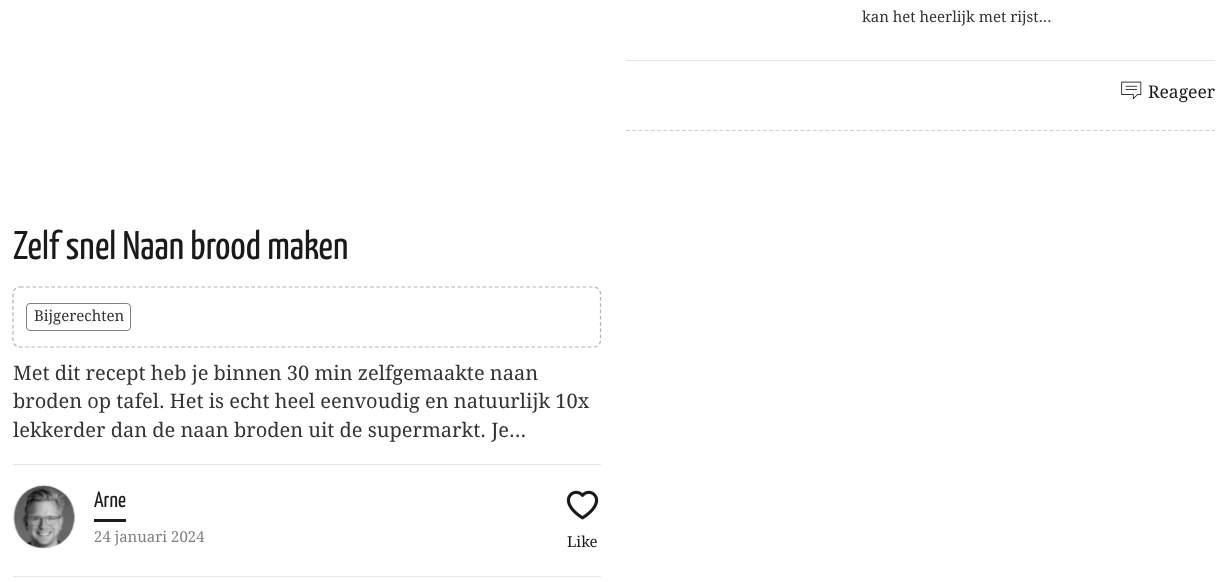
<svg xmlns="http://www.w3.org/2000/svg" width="1227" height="582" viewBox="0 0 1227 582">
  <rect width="100%" height="100%" fill="#fff"/>
  <path d="M626 130.5H1215" fill="none" stroke="#ccc" stroke-width="1.2" stroke-dasharray="3.75 2.48"/>
  <path d="M626 60h589v1H626z" fill="#e6e6e6"/>
  <image x="1121" y="81" width="21" height="19" href="img/1.png"/>
  <path d="M20 287H594C597.5 287 600.5 290 600.5 294V340C600.5 344 597.5 347 594 347H20C16 347 13 344 13 340V294C13 290 16 287 20 287Z" fill="none" stroke="#b3b3b3" stroke-width="1.2" stroke-dasharray="3.75 2.5"/>
  <rect x="26.5" y="303.5" width="104" height="27" rx="3.5" fill="none" stroke="#808080"/>
  <path d="M13 464h588v1H13z" fill="#e6e6e6"/>
  <image x="13" y="485" width="62" height="64" href="img/2.png"/>
  <path d="M94 519h32v3H94z" fill="#1a1a1a"/>
  <image x="566" y="490" width="33" height="30" href="img/3.png"/>
  <path d="M13 576h588v1H13z" fill="#e6e6e6"/>
  <text x="862" y="22" font-family="Droid Serif" font-size="15" fill="#333">kan het heerlijk met rijst...</text>
  <text x="1148" y="98" font-family="Droid Serif" font-size="17.5" fill="#1a1a1a">Reageer</text>
  <text x="13" y="259" font-family="Yanone Kaffeesatz" font-size="40" font-weight="200" fill="#1a1a1a">Zelf snel Naan brood maken</text>
  <text x="34" y="321" font-family="Droid Serif" font-size="15" fill="#333">Bijgerechten</text>
  <g font-family="Droid Serif" font-size="20" fill="#333">
    <text x="13" y="380">Met dit recept heb je binnen 30 min zelfgemaakte naan</text>
    <text x="13" y="408">broden op tafel. Het is echt heel eenvoudig en natuurlijk 10x</text>
    <text x="13" y="437">lekkerder dan de naan broden uit de supermarkt. Je...</text>
  </g>
  <text x="94" y="507" font-family="Yanone Kaffeesatz" font-size="22" font-weight="200" fill="#1a1a1a">Arne</text>
  <text x="94" y="542" font-family="Droid Serif" font-size="15" fill="#808080">24 januari 2024</text>
  <text x="567" y="547" font-family="Droid Serif" font-size="15" fill="#1a1a1a">Like</text>
</svg>
